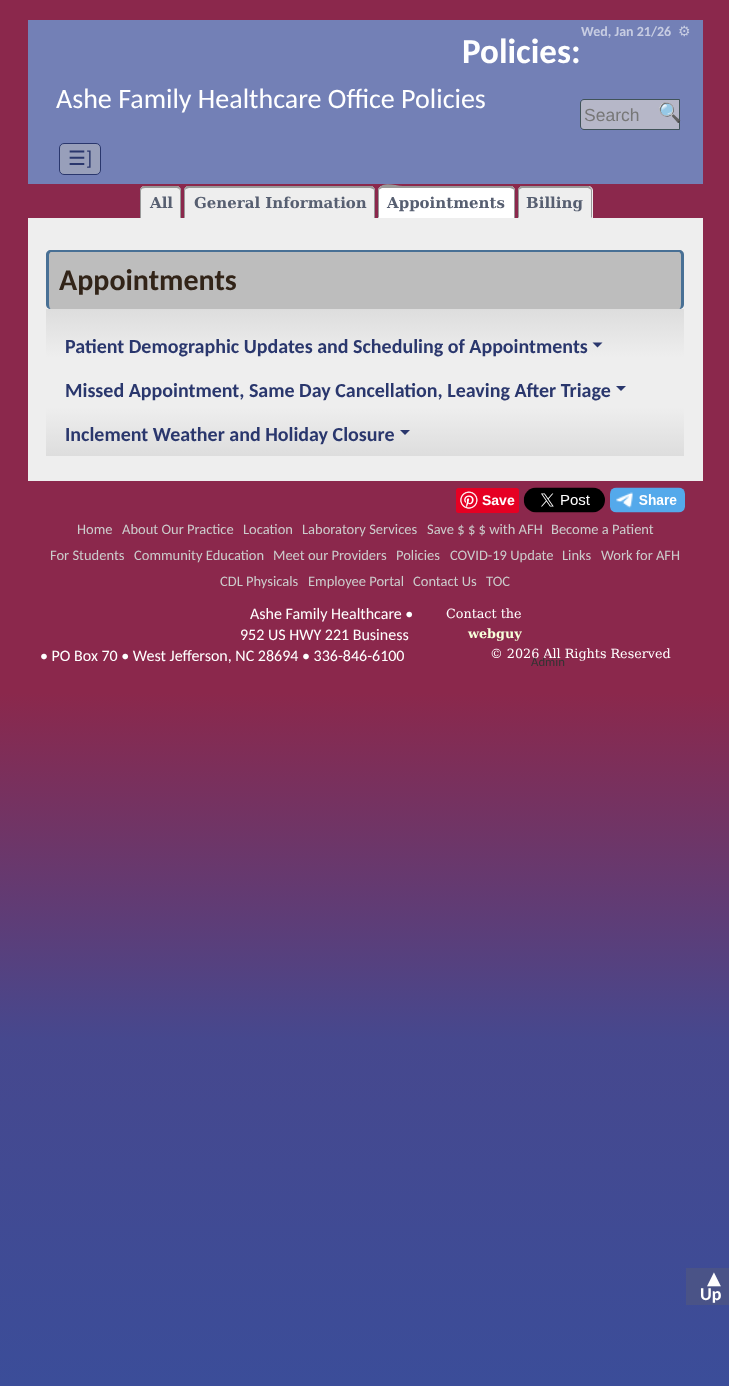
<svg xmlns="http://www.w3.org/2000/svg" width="729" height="1386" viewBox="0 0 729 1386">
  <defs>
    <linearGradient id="g1" gradientUnits="userSpaceOnUse" x1="365" y1="0" x2="365" y2="1386"><stop offset="0" stop-color="#8b284c"/><stop offset="0.5" stop-color="#8b284c"/><stop offset="0.75" stop-color="#46488e"/><stop offset="1" stop-color="#3b4d99"/></linearGradient>
    <linearGradient id="g2" gradientUnits="userSpaceOnUse" x1="365" y1="309" x2="365" y2="456"><stop offset="0" stop-color="#ddd"/><stop offset="0.33" stop-color="#eee"/><stop offset="0.67" stop-color="#eee"/><stop offset="1" stop-color="#ddd"/></linearGradient>
  </defs>
  <rect width="100%" height="100%" fill="#fff"/>
  <path d="M0 0h729v1386H0z" fill="url(#g1)"/>
  <path d="M28 20h675v164H28z" fill="#7380b6"/>
  <path d="M583.5 100H679V129H583.5C582 129 581 128 581 126.5V102.5C581 101 582 100 583.5 100Z" fill="#b6b7c8"/>
  <path d="M584 99.5H679.5V129.5H584C582 129.5 580.5 128 580.5 126V103C580.5 101 582 99.5 584 99.5Z" fill="none" stroke="#405359"/>
  <rect x="59.5" y="143.5" width="41" height="31" rx="4.5" fill="#989fba" stroke="#2a376d"/>
  <path d="M145 186H176C179 186 181 188 181 191V219H140V191C140 188 142 186 145 186Z" fill="#eee"/>
  <path d="M145 188L142.5 188.5L141.5 187.5L143.5 186H177.5L180 187.5L179 189C178 188 177 188 176 188Z" fill="#999"/>
  <path d="M180 187.5C180.5 188.5 181 189.5 181 191V218.5L180 217.5V191C180 190 179.5 189 179 189ZM140 219L141 218V191C141 190 141.5 189 142.5 188.5L141.5 187.5C140.5 188.5 140 189.5 140 191Z" fill="#999"/>
  <path d="M189 186H370C373 186 375 188 375 191V219H184V191C184 188 186 186 189 186Z" fill="#eee"/>
  <path d="M189 188L186 189L185 188L187 186H372L374 188L373 189L370 188Z" fill="#999"/>
  <path d="M375 219V191C375 189.5 374.5 188.5 373.5 187.5L372.5 188.5C373.5 189 374 190 374 191V218Z" fill="#999"/>
  <path d="M184 218.5V191C184 189.5 184.5 188.5 185 187.5L186 189C185.5 189 185 190 185 191V217.5Z" fill="#999"/>
  <path d="M383 186H510C513 186 515 188 515 191V219H378V191C378 188 380 186 383 186Z" fill="#fff"/>
  <path d="M382 188L380 189L379 188C384 181 395 186 403 186H512L514 188L513 189L510 188Z" fill="#999"/>
  <path d="M515 219V191C515 189.5 514.5 188.5 513.5 187.5L512.5 188.5C513.5 189 514 190 514 191V218Z" fill="#999"/>
  <path d="M378 218V191C378 189.5 378.5 188.5 379 187.5L380 188.5C379.5 189 379 190 379 191V217Z" fill="#999"/>
  <path d="M523 186H588C591 186 593 188 593 191V219H518V191C518 188 520 186 523 186Z" fill="#eee"/>
  <path d="M522 188L520 189L519 188L521 186H589L591 188L590 189L588 188Z" fill="#999"/>
  <path d="M591 187.5C591.5 188.5 592 189.5 592 191V218L591 217V191C591 190 590.5 189 590 188.5Z" fill="#999"/>
  <path d="M518 219L519 217V218H591V217L592 218V219Z" fill="#bfbfbf"/>
  <path d="M518 218V191C518 189.5 518.5 188.5 519 187.5L520 188.5C519.5 189 519 190 519 191V217Z" fill="#999"/>
  <path d="M28 218h675v263H28z" fill="#eee"/>
  <rect x="46" y="250" width="638" height="59" rx="5" fill="#bdbdbd"/>
  <path d="M51 250H679C682 250 684 252 684 255V304C684 307 682 309 679 309H51C48 309 46 307 46 304V255C46 252 48 250 51 250ZM51 252H679C680 252 681 254 681 255V304C681 307 680 309 679 309H51C50 309 49 307 49 304V255C49 254 50 252 51 252Z" fill="#487095" fill-rule="evenodd"/>
  <path d="M46 309h638v147H46z" fill="url(#g2)"/>
  <path d="M592.5 342.5H602.5L597.5 347.5Z" fill="#2a376d"/>
  <path d="M616 386H626L621 391Z" fill="#2a376d"/>
  <path d="M400 430H410L405 435Z" fill="#2a376d"/>
  <rect x="456" y="488" width="63" height="25" rx="2.5" fill="#e60023"/>
  <image x="460" y="491" width="18" height="18" href="img/1.png"/>
  <image x="523" y="487" width="82" height="26" href="img/2.png"/>
  <image x="610" y="487" width="75" height="26" href="img/3.png"/>
  <path d="M686 1268h43v37H686z" fill="#4a5387"/>
  <text x="581" y="36" font-family="Carlito" font-size="14" font-weight="bold" fill="#c7cce2">Wed, Jan 21/26</text>
  <text x="678" y="36" font-family="DejaVu Sans" font-size="14" font-weight="bold" fill="#c7cce2">⚙</text>
  <text x="462" y="63" font-family="Carlito" font-size="35" font-weight="bold" fill="#fff">Policies:</text>
  <text x="56" y="108" font-family="Carlito" font-size="28" fill="#fff">Ashe Family Healthcare Office Policies</text>
  <text x="584" y="121" font-family="Liberation Sans" font-size="17.5" fill="#777">Search</text>
  <text x="658" y="119" font-family="Noto Color Emoji" font-size="19" fill="#000">🔍</text>
  <text x="68" y="165" font-family="DejaVu Sans" font-size="20" fill="#2a376d">☰</text>
  <text x="86" y="165" font-family="Carlito" font-size="20" fill="#2a376d">]</text>
  <g font-family="DejaVu Serif" font-size="15" font-weight="bold" fill="#575f71">
    <text x="150" y="208">All</text>
    <text x="194" y="208">General Information</text>
    <text x="387" y="208">Appointments</text>
    <text x="526" y="208">Billing</text>
  </g>
  <text x="59" y="290" font-family="Carlito" font-size="30" font-weight="bold" fill="#322418">Appointments</text>
  <g font-family="Carlito" font-size="20" font-weight="bold" fill="#2a376d">
    <text x="65" y="353">Patient Demographic Updates and Scheduling of Appointments</text>
    <text x="65" y="397">Missed Appointment, Same Day Cancellation, Leaving After Triage</text>
    <text x="65" y="441">Inclement Weather and Holiday Closure</text>
  </g>
  <text x="482" y="505" font-family="Liberation Sans" font-size="14" font-weight="bold" fill="#fff">Save</text>
  <g font-family="Carlito" font-size="14.5" fill="#ccc">
    <text x="77" y="534">Home</text>
    <text x="122" y="534">About Our Practice</text>
    <text x="243" y="534">Location</text>
    <text x="302" y="534">Laboratory Services</text>
    <text x="427" y="534">Save $ $ $ with AFH</text>
    <text x="551" y="534">Become a Patient</text>
    <text x="50" y="560">For Students</text>
    <text x="134" y="560">Community Education</text>
    <text x="273" y="560">Meet our Providers</text>
    <text x="396" y="560">Policies</text>
    <text x="450" y="560">COVID-19 Update</text>
    <text x="562" y="560">Links</text>
    <text x="601" y="560">Work for AFH</text>
    <text x="220" y="586">CDL Physicals</text>
    <text x="308" y="586">Employee Portal</text>
    <text x="413" y="586">Contact Us</text>
    <text x="486" y="586">TOC</text>
  </g>
  <text x="250" y="619" font-family="Carlito" font-size="16" fill="#fff">Ashe Family Healthcare •</text>
  <text x="446" y="618" font-family="DejaVu Serif" font-size="12.75" fill="#fff">Contact the</text>
  <text x="468" y="638" font-family="DejaVu Serif" font-size="12.75" font-weight="bold" fill="#f7ffda">webguy</text>
  <text x="490" y="658" font-family="DejaVu Serif" font-size="12.75" fill="#fff">© 2026 All Rights Reserved</text>
  <text x="531" y="666" font-family="Carlito" font-size="12.75" fill="#333">Admin</text>
  <g font-family="Carlito" font-size="16" fill="#fff">
    <text x="240" y="640">952 US HWY 221 Business</text>
    <text x="40" y="661">• PO Box 70 • West Jefferson, NC 28694 • 336-846-6100</text>
  </g>
  <text x="707" y="1284" font-family="DejaVu Sans" font-size="18" font-weight="bold" fill="#fff">▲</text>
  <text x="700" y="1300" font-family="Carlito" font-size="18" font-weight="bold" fill="#fff">Up</text>
</svg>
